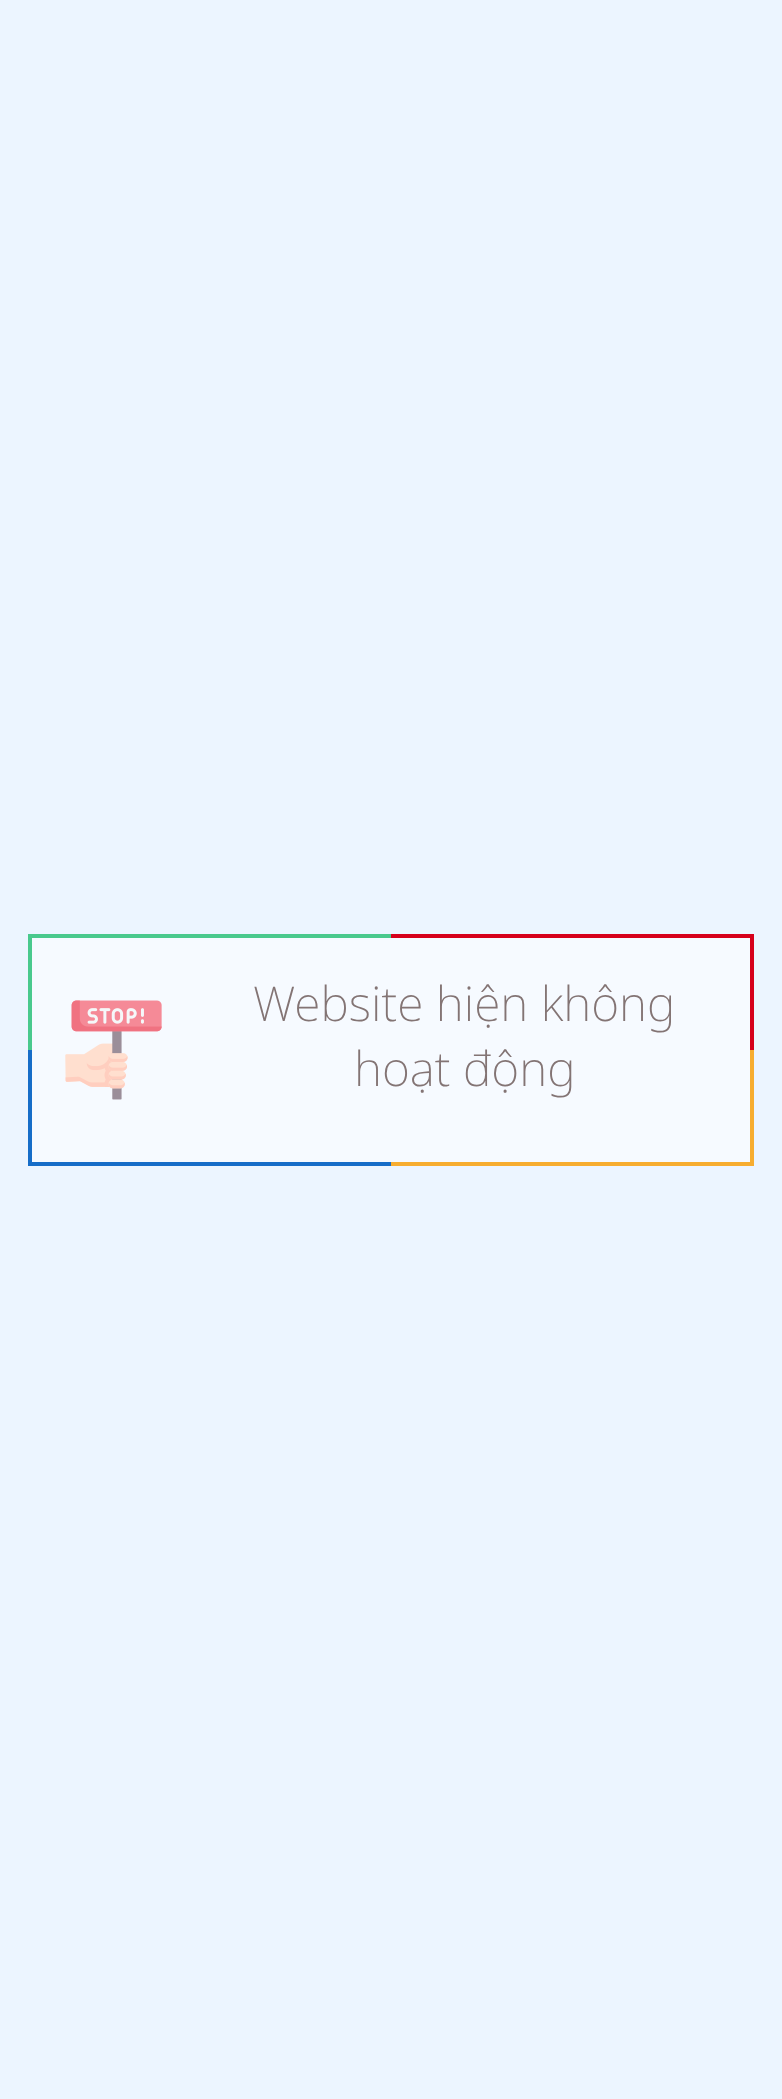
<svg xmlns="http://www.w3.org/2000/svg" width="782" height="2099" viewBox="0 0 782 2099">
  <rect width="100%" height="100%" fill="#ecf5ff"/>
  <path d="M32 938h718v224H32z" fill="#f6faff"/>
  <image x="28" y="934" width="726" height="232" href="img/1.png"/>
  <image x="65" y="1000" width="97" height="100" href="img/2.png"/>
  <g font-family="Noto Sans" font-size="48" font-weight="200" fill="#837474">
    <text x="253" y="1021">Website hiện không</text>
    <text x="354" y="1086">hoạt động</text>
  </g>
</svg>
